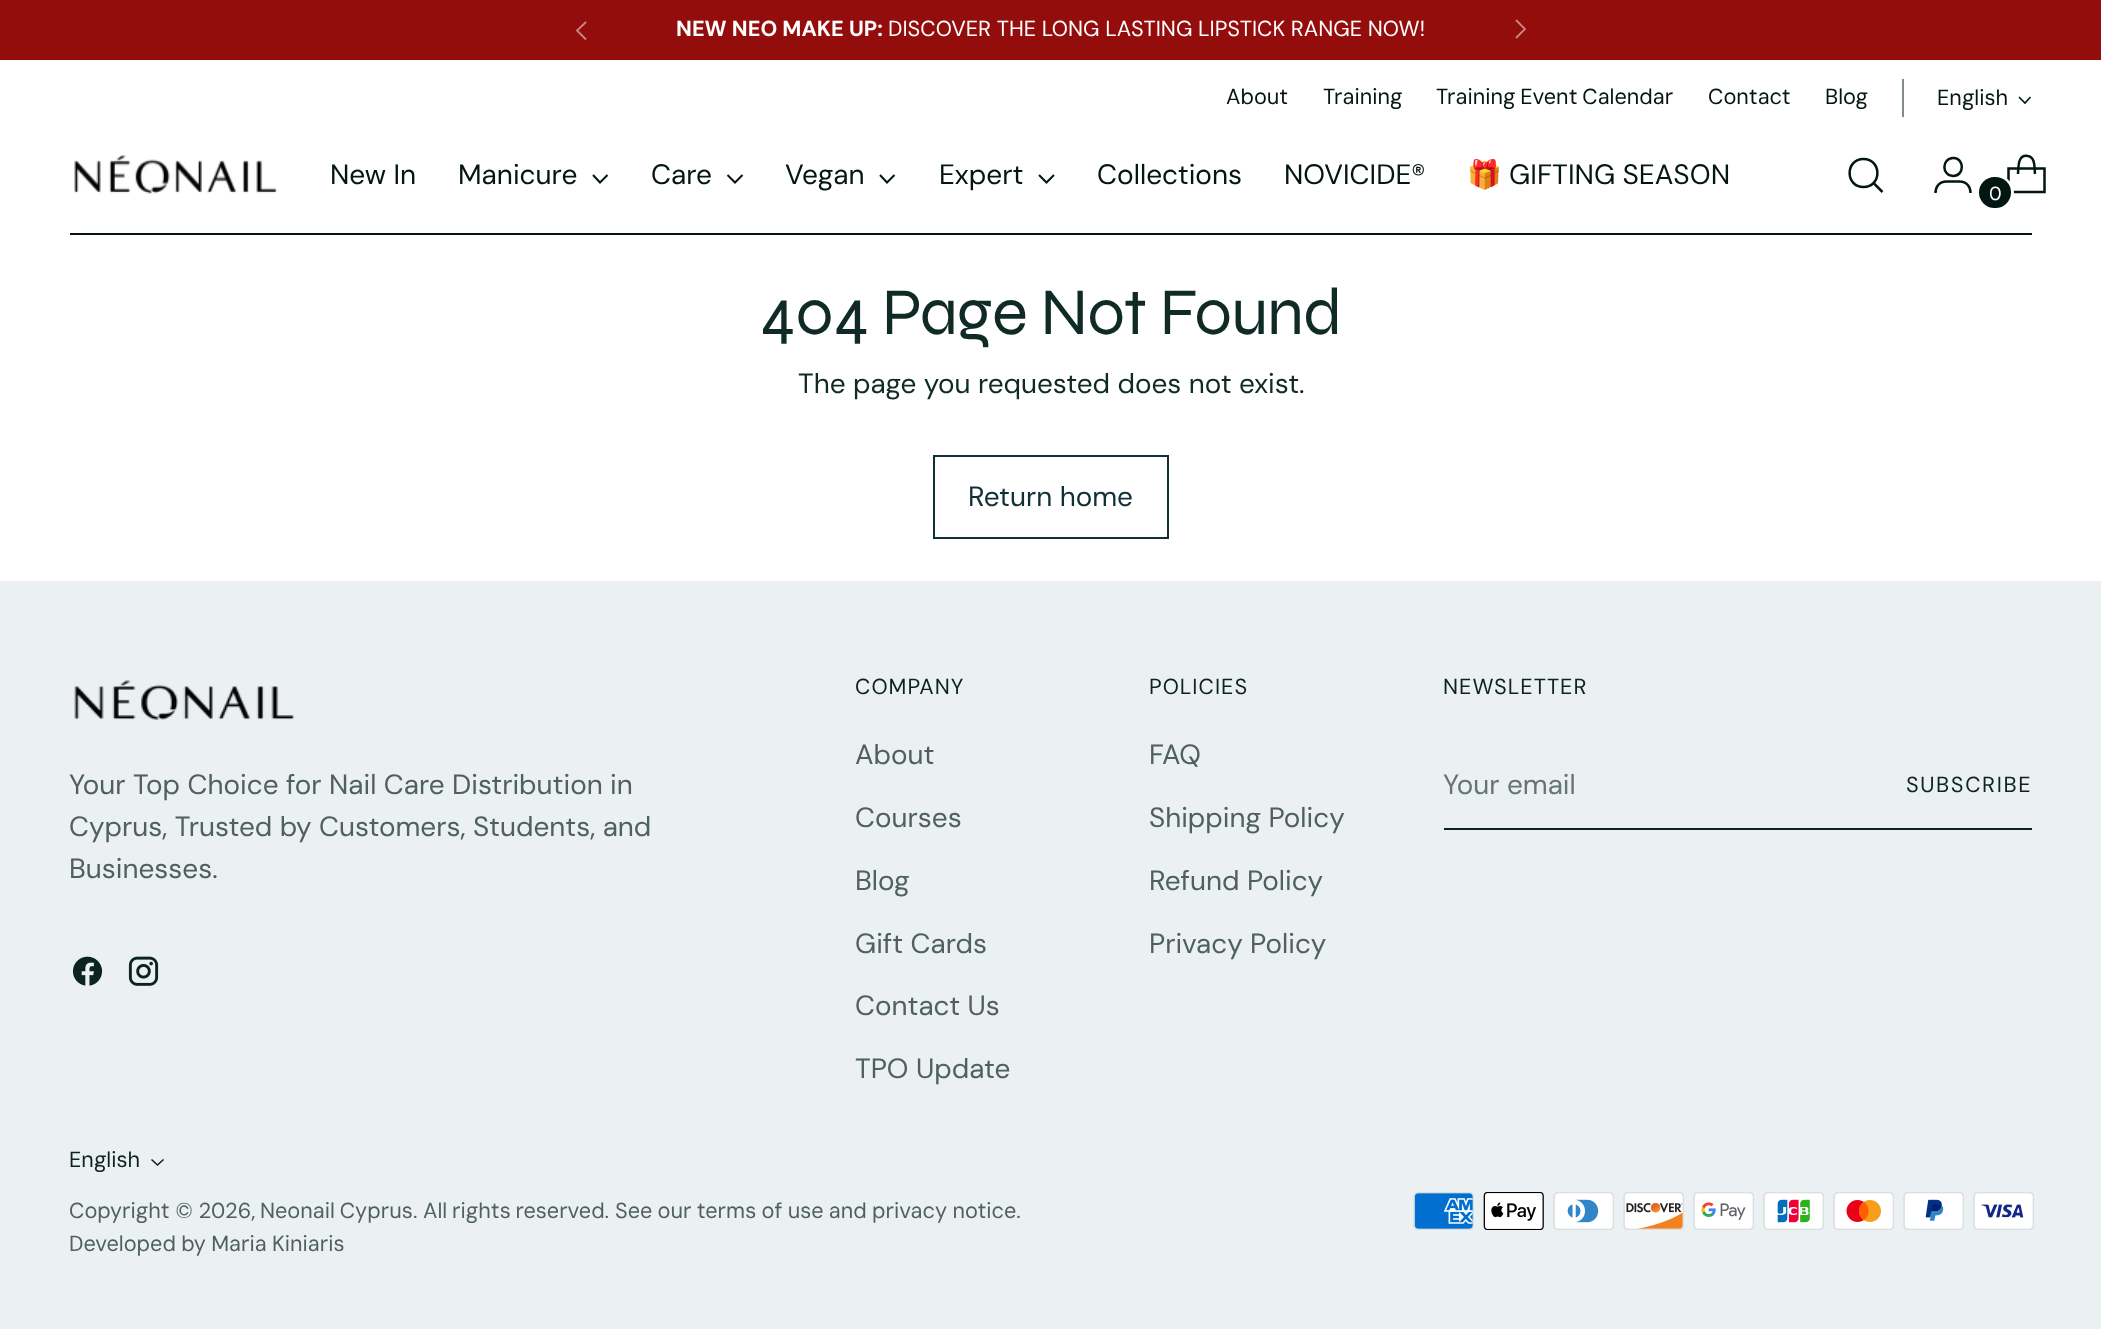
<svg xmlns="http://www.w3.org/2000/svg" width="2101" height="1329" viewBox="0 0 2101 1329">
  <rect width="100%" height="100%" fill="#fff"/>
  <path d="M0 0h2101v60H0z" fill="#940d0d"/>
  <path d="M586 22L577 30.5L586 39.5" fill="none" stroke="#ca8686" stroke-width="1.8"/>
  <path d="M1516 38L1525 29L1516 20" fill="none" stroke="#ca8686" stroke-width="1.8"/>
  <path d="M70 233h1962v2H70z" fill="#031612"/>
  <path d="M1902 79h2v38H1902z" fill="#818b89"/>
  <path d="M2019 97L2025 103L2030.5 97" fill="none" stroke="#031612" stroke-width="1.6"/>
  <image x="74" y="155" width="203" height="39" href="img/1.png"/>
  <path d="M593 175L600 182.5L607.5 175" fill="none" stroke="#031612" stroke-width="2"/>
  <path d="M727.5 175L735 182.5L742.5 175" fill="none" stroke="#031612" stroke-width="2"/>
  <path d="M880 175L887 182.5L894.5 175" fill="none" stroke="#031612" stroke-width="2"/>
  <path d="M1039 175L1046.5 182.5L1054 175" fill="none" stroke="#031612" stroke-width="2"/>
  <path d="M1863.5 187C1882 187 1882 159 1863.5 159C1845 159 1845 187 1863.5 187Z" fill="none" stroke="#031612" stroke-width="2.5" stroke-linecap="round"/>
  <path d="M1873.5 183L1882.5 192" fill="none" stroke="#031612" stroke-width="2.5"/>
  <path d="M1953 176C1965 176 1964.5 157.5 1953 158C1941.5 158.5 1941.5 175.5 1953 176ZM1935.5 193C1935.5 187 1939 181.5 1946.5 181.5H1959.5C1967 181.5 1970.5 187 1970.5 193" fill="none" stroke="#031612" stroke-width="2.5"/>
  <path d="M2035 174C2034.5 169.5 2035 165 2033.5 161C2032.5 158.5 2031 156.5 2028 156C2017.5 154 2018.5 167.5 2018 174" fill="none" stroke="#031612" stroke-width="2.5" stroke-linejoin="bevel"/>
  <path d="M2044.5 192V168.5H2008.5V192Z" fill="none" stroke="#031612" stroke-width="2.5"/>
  <rect x="1979.5" y="176.5" width="33" height="34" rx="16.5" fill="none" stroke="#fff" stroke-width="3"/>
  <rect x="1979" y="177" width="32" height="31" rx="15.5" fill="#031612"/>
  <path d="M934 456h234v82H934z" fill="none" stroke="#113035" stroke-width="2"/>
  <path d="M0 581h2101v748H0z" fill="#ebf0f2"/>
  <path d="M1444 828h588v2H1444z" fill="#0c231e"/>
  <image x="74" y="680" width="221" height="40" href="img/2.png"/>
  <image x="72" y="956" width="31" height="30" href="img/3.png"/>
  <image x="128" y="956" width="31" height="30" href="img/4.png"/>
  <path d="M151.5 1159.5L157.5 1165L163.5 1159.5" fill="none" stroke="#0c231e" stroke-width="1.6"/>
  <image x="1413" y="1192" width="61" height="38" href="img/5.png"/>
  <image x="1483" y="1192" width="61" height="38" href="img/6.png"/>
  <image x="1553" y="1192" width="61" height="38" href="img/7.png"/>
  <image x="1623" y="1192" width="61" height="38" href="img/8.png"/>
  <image x="1693" y="1192" width="61" height="38" href="img/9.png"/>
  <image x="1763" y="1192" width="61" height="38" href="img/10.png"/>
  <image x="1833" y="1192" width="61" height="38" href="img/11.png"/>
  <image x="1903" y="1192" width="61" height="38" href="img/12.png"/>
  <image x="1973" y="1192" width="61" height="38" href="img/13.png"/>
  <text x="676" y="36" font-family="DM Sans" font-size="21.7" font-weight="bold" fill="#fff">NEW NEO MAKE UP:</text>
  <text x="888" y="36" word-spacing="-0.25" font-family="'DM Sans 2'" font-size="21.7" fill="#fff">DISCOVER THE LONG LASTING LIPSTICK RANGE NOW!</text>
  <g font-family="'DM Sans 2'" font-size="21.7" fill="#031612">
    <text x="1226" y="104">About</text>
    <text x="1323" y="104">Training</text>
    <text x="1436" y="104" word-spacing="-1">Training Event Calendar</text>
    <text x="1708" y="104">Contact</text>
    <text x="1825" y="104">Blog</text>
    <text x="1937" y="105">English</text>
  </g>
  <g font-family="'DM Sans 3'" font-size="28" fill="#031612">
    <text x="330" y="184">New In</text>
    <text x="458" y="184">Manicure</text>
    <text x="651" y="184">Care</text>
    <text x="785" y="184">Vegan</text>
    <text x="939" y="184">Expert</text>
    <text x="1097" y="184">Collections</text>
    <text x="1284" y="184">NOVICIDE®</text>
  </g>
  <text x="1467" y="184" font-family="Noto Color Emoji" font-size="28" fill="#031612">🎁</text>
  <text x="1509" y="184" word-spacing="-0.5" font-family="'DM Sans 2'" font-size="28" fill="#031612">GIFTING SEASON</text>
  <text x="1989" y="200" font-family="'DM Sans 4'" font-size="19" fill="#fff">0</text>
  <text x="760" y="334" font-family="Syne" font-size="66.5" letter-spacing="-0.7" fill="#102b26">404 Page Not Found</text>
  <text x="798" y="393" font-family="DM Sans" font-size="27.9" fill="#102b26">The page you requested does not exist.</text>
  <text x="968" y="506" font-family="DM Sans" font-size="27.9" fill="#113035">Return home</text>
  <text x="855" y="694" font-family="'DM Sans 2'" font-size="21.7" letter-spacing="1" fill="#0c231e">COMPANY</text>
  <g font-family="DM Sans" font-size="27.9" fill="#4f615e">
    <text x="855" y="764">About</text>
    <text x="855" y="827">Courses</text>
    <text x="855" y="890">Blog</text>
    <text x="855" y="953">Gift Cards</text>
    <text x="855" y="1015">Contact Us</text>
    <text x="855" y="1078">TPO Update</text>
  </g>
  <text x="1149" y="694" font-family="'DM Sans 2'" font-size="21.7" letter-spacing="1" fill="#0c231e">POLICIES</text>
  <g font-family="DM Sans" font-size="27.9" fill="#4f615e">
    <text x="1149" y="764">FAQ</text>
    <text x="1149" y="827">Shipping Policy</text>
    <text x="1149" y="890">Refund Policy</text>
    <text x="1149" y="953">Privacy Policy</text>
  </g>
  <text x="1443" y="694" font-family="'DM Sans 2'" font-size="21.7" letter-spacing="1" fill="#0c231e">NEWSLETTER</text>
  <text x="1443" y="794" font-family="DM Sans" font-size="27.9" fill="#657573">Your email</text>
  <text x="1906" y="792" font-family="'DM Sans 2'" font-size="21.7" letter-spacing="1.6" fill="#0c231e">SUBSCRIBE</text>
  <g font-family="DM Sans" font-size="27.9" fill="#4f615e">
    <text x="69" y="794">Your Top Choice for Nail Care Distribution in</text>
    <text x="69" y="836">Cyprus, Trusted by Customers, Students, and</text>
    <text x="69" y="878">Businesses.</text>
  </g>
  <text x="69" y="1167" font-family="'DM Sans 2'" font-size="21.7" fill="#0c231e">English</text>
  <g font-family="'DM Sans 2'" font-size="21.7" fill="#4f615e">
    <text x="69" y="1218">Copyright © 2026,</text>
    <text x="260" y="1218" word-spacing="-1">Neonail Cyprus</text>
    <text x="413" y="1218">.</text>
    <text x="423" y="1218" word-spacing="-1">All rights reserved.</text>
    <text x="615" y="1218" word-spacing="-0.5">See our terms of use and privacy notice.</text>
    <text x="69" y="1251" word-spacing="-0.5">Developed by Maria Kiniaris</text>
  </g>
</svg>
